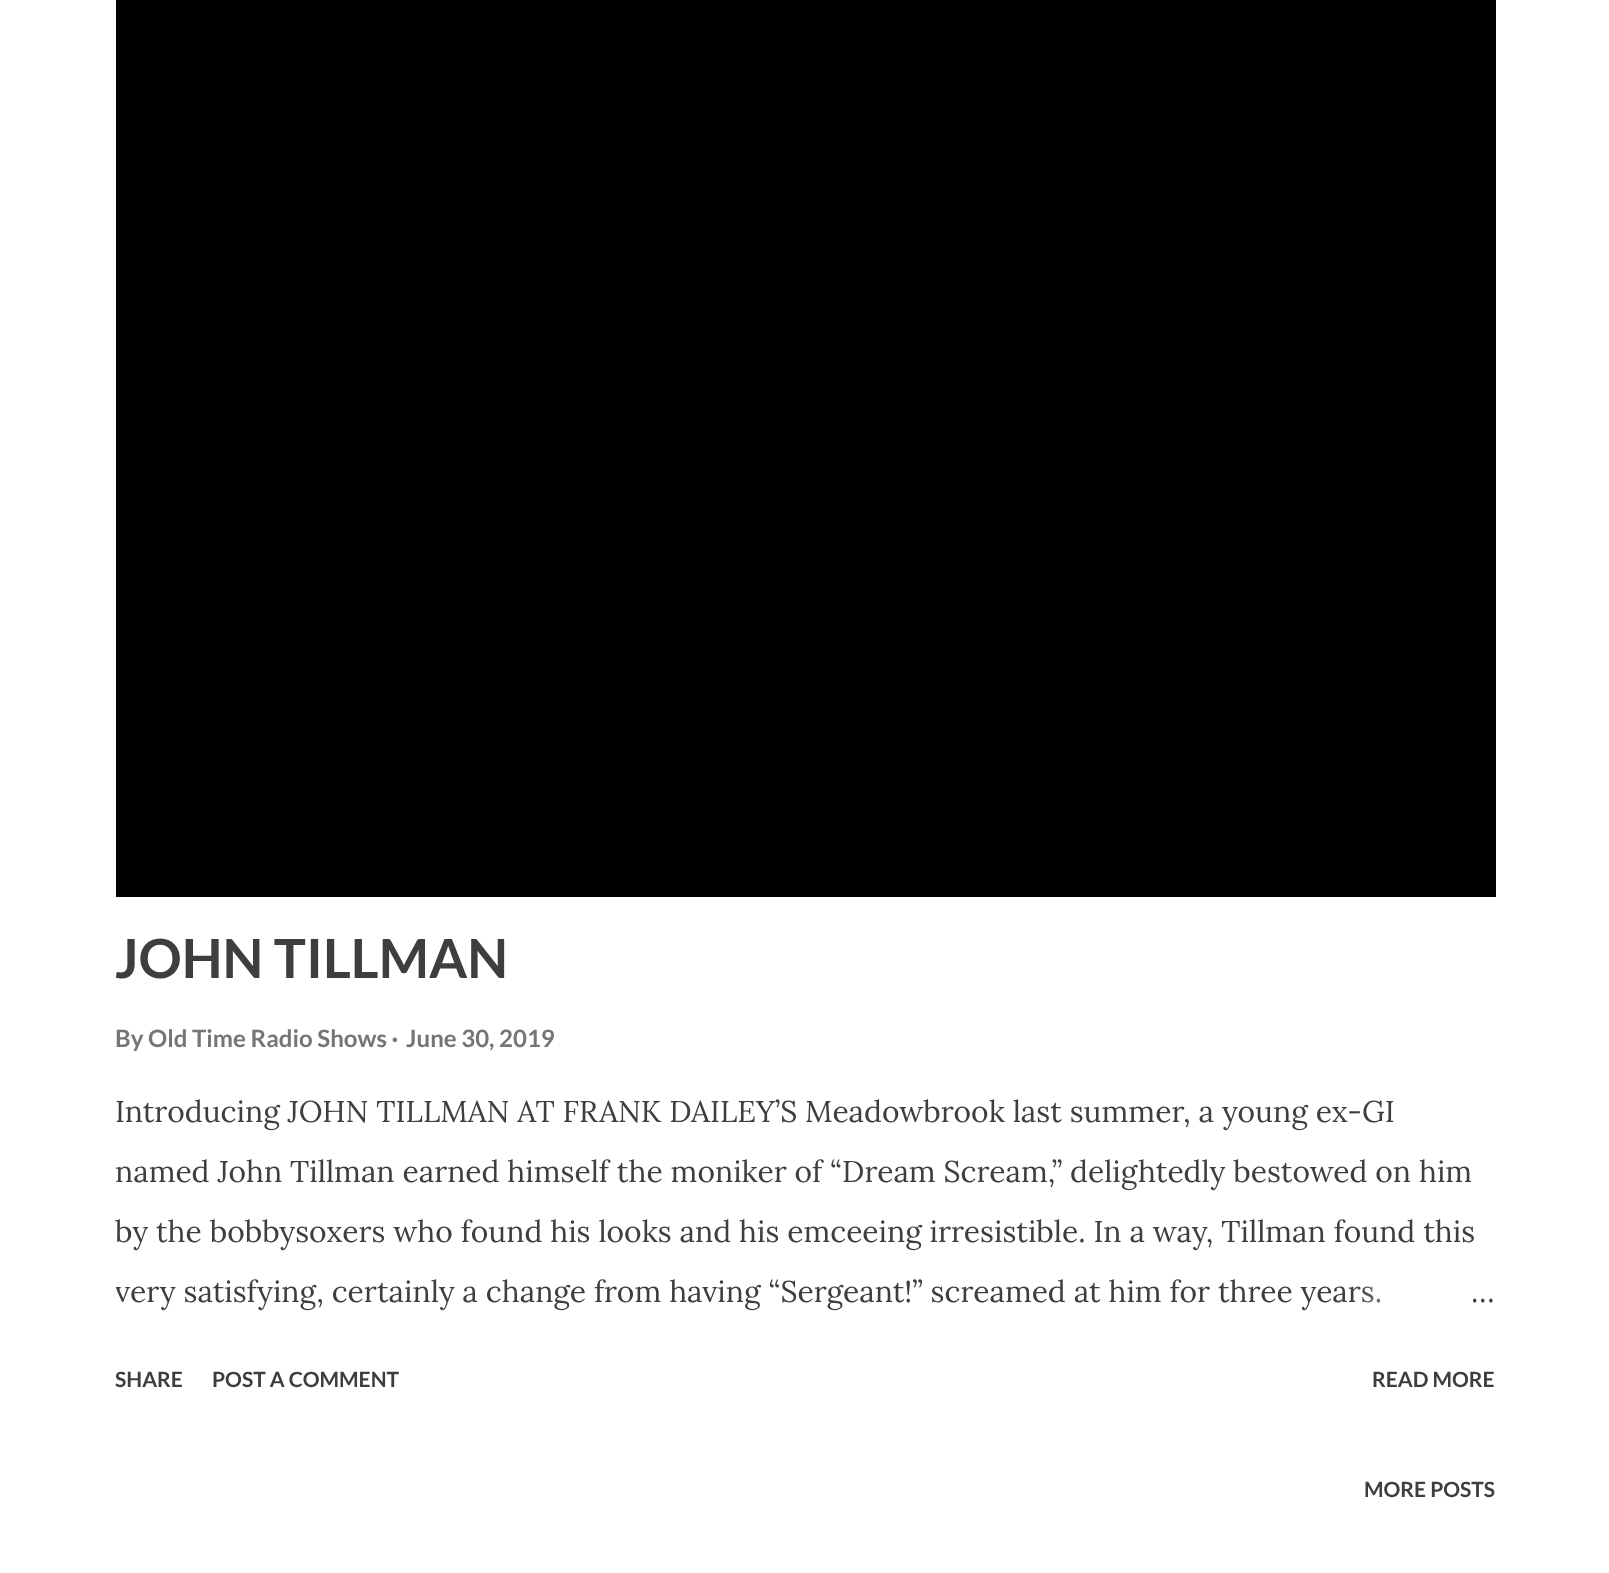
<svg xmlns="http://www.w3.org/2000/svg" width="1609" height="1573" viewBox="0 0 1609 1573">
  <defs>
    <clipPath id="clip1"><path d="M116 1082h1380v240H116z"/></clipPath>
    <linearGradient id="g1" gradientUnits="userSpaceOnUse" x1="1496" y1="1292" x2="1352" y2="1292"><stop offset="0" stop-color="#fff"/><stop offset="0.2" stop-color="#fff"/><stop offset="1" stop-color="#fff" stop-opacity="0"/></linearGradient>
  </defs>
  <rect width="100%" height="100%" fill="#fff"/>
  <path d="M116 0h1380v897H116z" fill="#000"/>
  <text x="115" y="978" font-family="Lato" font-size="54" font-weight="bold" fill="#3e3f3c">JOHN TILLMAN</text>
  <g font-family="Lato" font-size="24" font-weight="bold" fill="#757575">
    <text x="115" y="1047">By Old Time Radio Shows ·</text>
    <text x="406" y="1047">June 30, 2019</text>
  </g>
  <g font-family="Lora" font-size="30" fill="#3e3f3c">
    <text x="115" y="1122">Introducing JOHN TILLMAN AT FRANK DAILEY’S Meadowbrook last summer, a young ex-GI</text>
    <text x="115" y="1182">named John Tillman earned himself the moniker of “Dream Scream,” delightedly bestowed on him</text>
    <text x="115" y="1242">by the bobbysoxers who found his looks and his emceeing irresistible. In a way, Tillman found this</text>
  </g>
  <g clip-path="url(#clip1)">
    <text x="115" y="1302" font-family="Lora" font-size="30" fill="#3e3f3c">very satisfying, certainly a change from having “Sergeant!” screamed at him for three years.</text>
  </g>
  <path d="M1354 1286h26v17H1354z" fill="url(#g1)"/>
  <text x="1471" y="1302" font-family="Lora" font-size="30" fill="#3e3f3c">…</text>
  <g font-family="Lato" font-size="21" font-weight="bold" fill="#3e3f3c">
    <text x="115" y="1387">SHARE</text>
    <text x="212" y="1387">POST A COMMENT</text>
    <text x="1372" y="1387">READ MORE</text>
    <text x="1364" y="1497">MORE POSTS</text>
  </g>
</svg>
